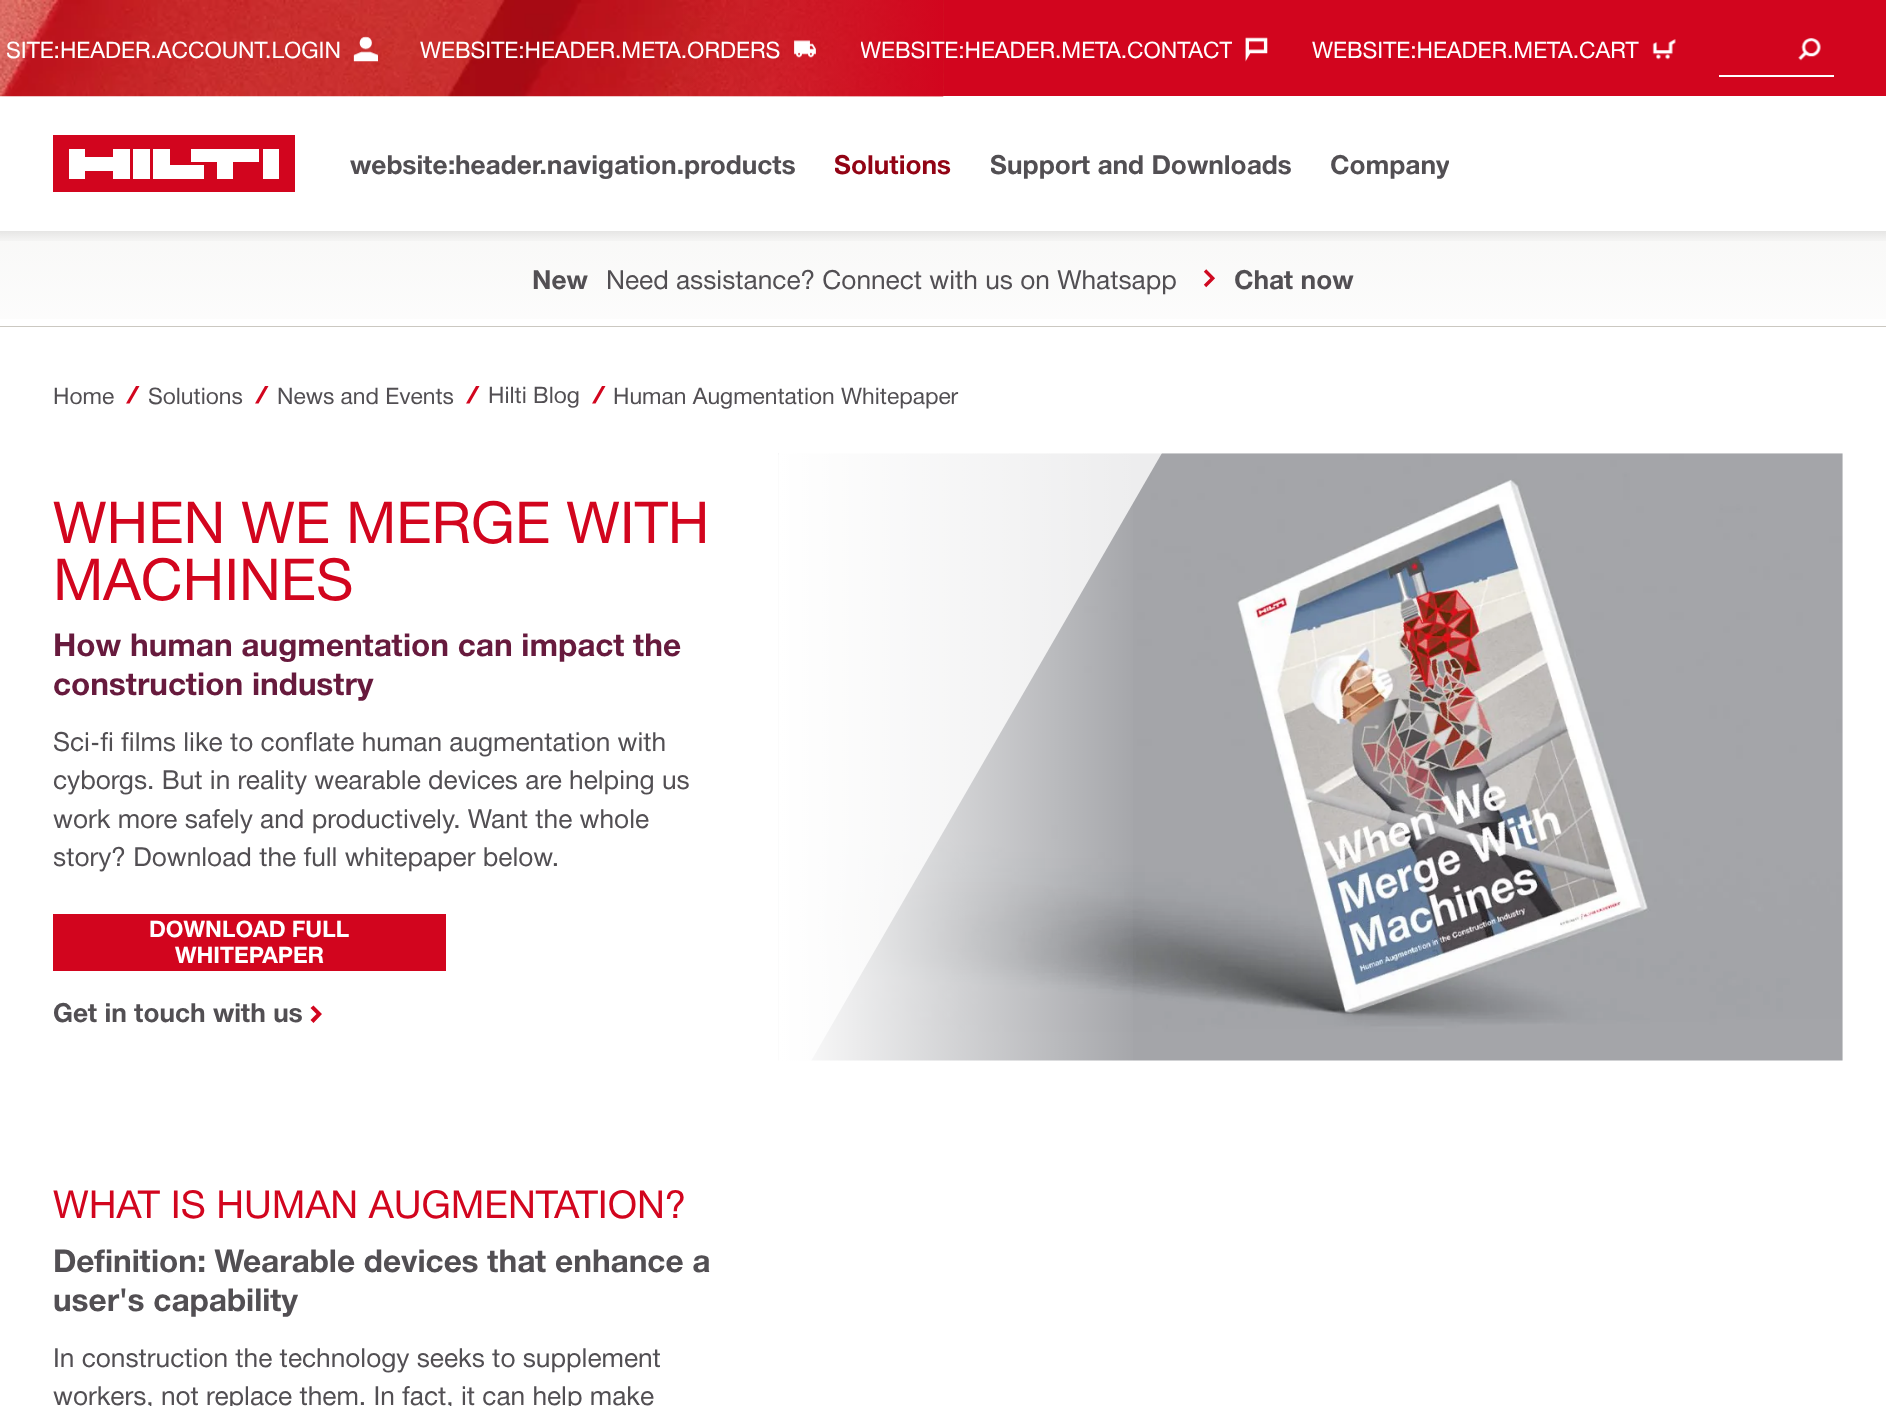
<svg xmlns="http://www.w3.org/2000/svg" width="1886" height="1406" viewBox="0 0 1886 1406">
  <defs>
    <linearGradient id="g1" gradientUnits="userSpaceOnUse" x1="943" y1="231" x2="943" y2="385"><stop offset="0" stop-color="#7d7565" stop-opacity="0.05"/><stop offset="1" stop-color="#7d7565" stop-opacity="0"/></linearGradient>
    <clipPath id="clip1"><path d="M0 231h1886v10H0z"/></clipPath>
    <clipPath id="clip2"><path d="M753 453h1090v615H753z"/></clipPath>
    <linearGradient id="g2" gradientUnits="userSpaceOnUse" x1="779" y1="760" x2="1141" y2="760"><stop offset="0" stop-color="#fff"/><stop offset="1" stop-color="#fff" stop-opacity="0"/></linearGradient>
    <clipPath id="clip3"><path d="M861 35h371v26H861z"/></clipPath>
    <clipPath id="clip4"><path d="M835 149h117v31H835z"/></clipPath>
    <clipPath id="clip5"><path d="M991 149h301v31H991z"/></clipPath>
    <clipPath id="clip6"><path d="M1330 149h119v31H1330z"/></clipPath>
  </defs>
  <rect width="100%" height="100%" fill="#fff"/>
  <image x="1203" y="269" width="12" height="19" href="img/7.png"/>
  <path d="M0 231h1886v88H0z" fill="url(#g1)"/>
  <g clip-path="url(#clip1)">
    <path d="M-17 -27h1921v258H-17z" fill="#00000026" filter="blur(9px)"/>
  </g>
  <path d="M943 0h943v96H943z" fill="#d2051e"/>
  <image x="0" y="0" width="944" height="97" href="img/1.png"/>
  <image x="353" y="36" width="25" height="26" href="img/2.png"/>
  <image x="794" y="40" width="22" height="18" href="img/3.png"/>
  <image x="1245" y="37" width="23" height="25" href="img/4.png"/>
  <image x="1652" y="39" width="24" height="21" href="img/5.png"/>
  <image x="1798" y="38" width="23" height="23" href="img/6.png"/>
  <path d="M1719 75h115v2H1719z" fill="#fff"/>
  <path d="M53 135h242v57H53z" fill="#d2051e"/>
  <path d="M150 179H133V149H150ZM279 149H263V179H279ZM69 179H85V171H113V179H130V149H113V157H85V149H69ZM153 179H204V165H170V149H153ZM191 162H217V179H233V162H259V149H191Z" fill="#fff"/>
  <path d="M0 326h1886v1H0z" fill="#cbc8c1"/>
  <path d="M136 386H139.5L129.5 403.5H126Z" fill="#d2051e"/>
  <path d="M265 386H268.5L258.5 403.5H255Z" fill="#d2051e"/>
  <path d="M476 386H479.5L469.5 403.5H466Z" fill="#d2051e"/>
  <path d="M602 386H605.5L595.5 403.5H592Z" fill="#d2051e"/>
  <path d="M53 914h393v57H53z" fill="#d2051e"/>
  <path d="M322 1014L313.5 1005.5L310.5 1008L316.5 1014L310.5 1020L313.5 1023Z" fill="#d2051e"/>
  <image x="778" y="453" width="1065" height="608" href="img/8.png"/>
  <g clip-path="url(#clip2)">
    <path d="M779 453H1162L807 1068H424Z" fill="#ffffffcc"/>
  </g>
  <path d="M779 453h354v608H779z" fill="url(#g2)"/>
  <g font-family="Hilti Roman" font-size="22.75" fill="#fff">
    <text x="6" y="58">SITE:HEADER.ACCOUNT.LOGIN</text>
    <text x="420" y="58">WEBSITE:HEADER.META.ORDERS</text>
  </g>
  <g clip-path="url(#clip3)">
    <text x="860" y="58" font-family="Hilti Roman" font-size="22.75" fill="#fff">WEBSITE:HEADER.META.CONTACT</text>
  </g>
  <text x="1312" y="58" font-family="Hilti Roman" font-size="22.75" fill="#fff">WEBSITE:HEADER.META.CART</text>
  <text x="350" y="174" font-family="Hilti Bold" font-size="26.25" font-weight="bold" fill="#524f53">website:header.navigation.products</text>
  <g clip-path="url(#clip4)">
    <text x="834" y="174" font-family="Hilti Bold" font-size="26.25" font-weight="bold" fill="#920314">Solutions</text>
  </g>
  <g clip-path="url(#clip5)">
    <text x="990" y="174" font-family="Hilti Bold" font-size="26.25" font-weight="bold" fill="#524f53">Support and Downloads</text>
  </g>
  <g clip-path="url(#clip6)">
    <text x="1330" y="174" font-family="Hilti Bold" font-size="26.25" font-weight="bold" fill="#524f53">Company</text>
  </g>
  <text x="532" y="289" font-family="Hilti Bold" font-size="26.25" font-weight="bold" fill="#524f53">New</text>
  <text x="606" y="289" font-family="Hilti Roman" font-size="26.25" fill="#524f53">Need assistance? Connect with us on Whatsapp</text>
  <text x="1234" y="289" font-family="Hilti Bold" font-size="26.25" font-weight="bold" fill="#524f53">Chat now</text>
  <g font-family="Hilti Roman" font-size="22.75" fill="#524f53">
    <text x="53" y="404">Home</text>
    <text x="148" y="404">Solutions</text>
    <text x="277" y="404">News and Events</text>
    <text x="488" y="403">Hilti Blog</text>
    <text x="613" y="404">Human Augmentation Whitepaper</text>
  </g>
  <g font-family="Hilti Roman" font-size="57.75" fill="#d2051e">
    <text x="53" y="543">WHEN WE MERGE WITH</text>
    <text x="53" y="600">MACHINES</text>
  </g>
  <g font-family="Hilti Bold" font-size="31.5" font-weight="bold" fill="#671a3d">
    <text x="53" y="656">How human augmentation can impact the</text>
    <text x="53" y="695">construction industry</text>
  </g>
  <g font-family="Hilti Roman" font-size="26.25" fill="#524f53">
    <text x="53" y="751">Sci-fi films like to conflate human augmentation with</text>
    <text x="53" y="789">cyborgs. But in reality wearable devices are helping us</text>
    <text x="53" y="828">work more safely and productively. Want the whole</text>
    <text x="53" y="866">story? Download the full whitepaper below.</text>
  </g>
  <g font-family="Hilti Bold" font-size="22.75" font-weight="bold" fill="#fff">
    <text x="149" y="937">DOWNLOAD FULL</text>
    <text x="175" y="963">WHITEPAPER</text>
  </g>
  <text x="53" y="1022" font-family="Hilti Bold" font-size="26.25" font-weight="bold" fill="#524f53">Get in touch with us</text>
  <text x="53" y="1218" font-family="Hilti Roman" font-size="38.5" fill="#d2051e">WHAT IS HUMAN AUGMENTATION?</text>
  <g font-family="Hilti Bold" font-size="31.5" font-weight="bold" fill="#524f53">
    <text x="53" y="1272">Definition: Wearable devices that enhance a</text>
    <text x="53" y="1311">user's capability</text>
  </g>
  <g font-family="Hilti Roman" font-size="26.25" fill="#524f53">
    <text x="53" y="1367">In construction the technology seeks to supplement</text>
    <text x="53" y="1405">workers, not replace them. In fact, it can help make</text>
  </g>
</svg>
